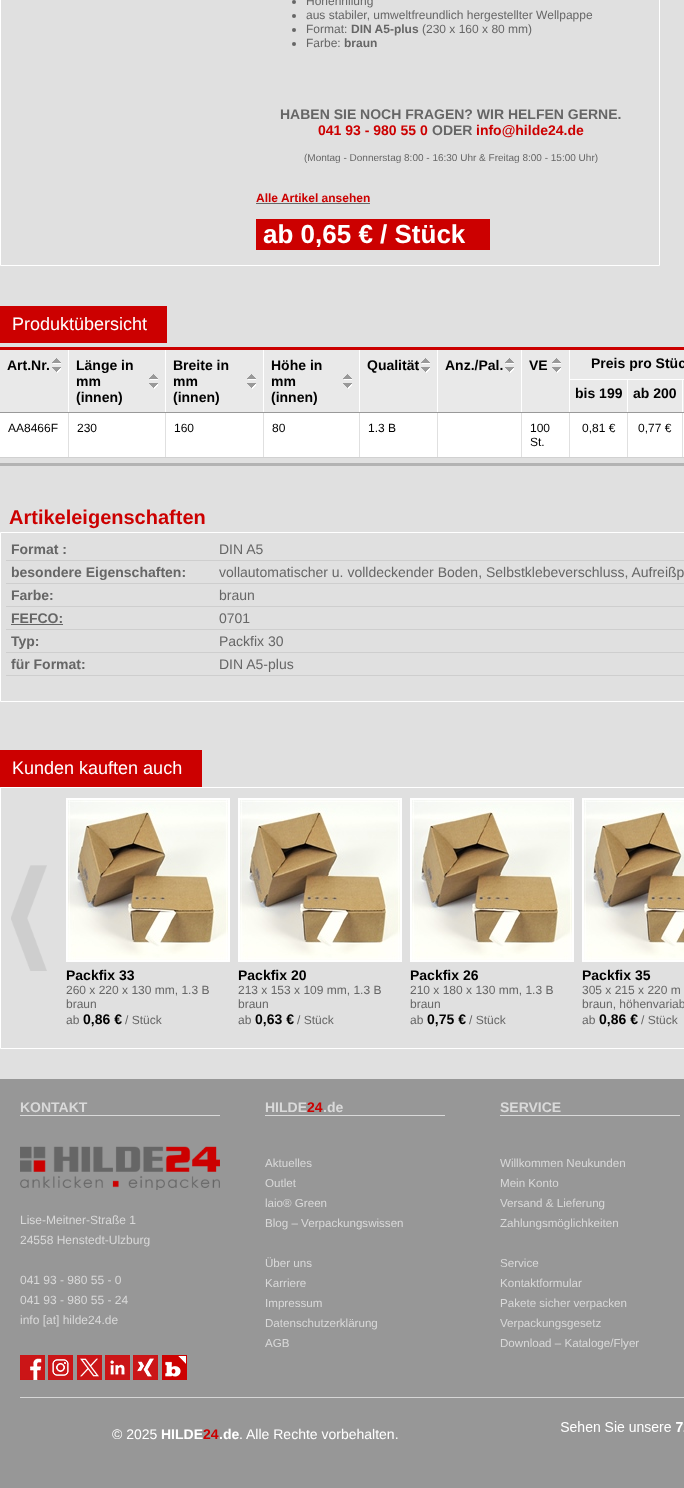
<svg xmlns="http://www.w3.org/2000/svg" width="684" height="1488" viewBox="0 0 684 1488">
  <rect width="100%" height="100%" fill="#e0e0e0"/>
  <path d="M0.5 -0.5h659v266H0.5z" fill="none" stroke="#fff"/>
  <circle cx="294" cy="2" r="2" fill="#666"/>
  <circle cx="294" cy="16" r="2" fill="#666"/>
  <circle cx="294" cy="30" r="2" fill="#666"/>
  <circle cx="294" cy="44" r="2" fill="#666"/>
  <path d="M256 203h114v1H256z" fill="#666"/>
  <path d="M256 219h234v31H256z" fill="#c00"/>
  <path d="M0 306h167v37H0z" fill="#c00"/>
  <path d="M0 347h684v3H0z" fill="#c00"/>
  <path d="M0 463h684v3H0z" fill="#b3b3b3"/>
  <path d="M0 350h68v62H0z" fill="#e9e9e9"/>
  <path d="M683 380h1v33H683z" fill="#e9e9e9"/>
  <path d="M0 413h684v44H0z" fill="#fff"/>
  <path d="M682 457h2v1H682z" fill="#d1d1d1"/>
  <path d="M682 412h1v46H682z" fill="#e0e0e0"/>
  <path d="M682 412h2v1H682z" fill="#999"/>
  <path d="M682 379h1v34H682z" fill="#fff"/>
  <path d="M627 457h56v1H627z" fill="#d1d1d1"/>
  <path d="M627 412h1v46H627z" fill="#e0e0e0"/>
  <path d="M627 412h56v1H627z" fill="#999"/>
  <path d="M627 379h1v34H627z" fill="#fff"/>
  <path d="M569 379h115v1H569z" fill="#fff"/>
  <path d="M569 457h59v1H569z" fill="#d1d1d1"/>
  <path d="M569 412h1v46H569z" fill="#e0e0e0"/>
  <path d="M569 412h59v1H569z" fill="#999"/>
  <path d="M569 350h1v63H569z" fill="#fff"/>
  <path d="M521 457h49v1H521z" fill="#d1d1d1"/>
  <path d="M521 412h1v46H521z" fill="#e0e0e0"/>
  <path d="M521 412h49v1H521z" fill="#999"/>
  <path d="M521 350h1v63H521z" fill="#fff"/>
  <path d="M437 457h85v1H437z" fill="#d1d1d1"/>
  <path d="M437 412h1v46H437z" fill="#e0e0e0"/>
  <path d="M437 412h85v1H437z" fill="#999"/>
  <path d="M437 350h1v63H437z" fill="#fff"/>
  <path d="M359 457h79v1H359z" fill="#d1d1d1"/>
  <path d="M359 412h1v46H359z" fill="#e0e0e0"/>
  <path d="M359 412h79v1H359z" fill="#999"/>
  <path d="M359 350h1v63H359z" fill="#fff"/>
  <path d="M263 457h97v1H263z" fill="#d1d1d1"/>
  <path d="M263 412h1v46H263z" fill="#e0e0e0"/>
  <path d="M263 412h97v1H263z" fill="#999"/>
  <path d="M263 350h1v63H263z" fill="#fff"/>
  <path d="M165 457h99v1H165z" fill="#d1d1d1"/>
  <path d="M165 412h1v46H165z" fill="#e0e0e0"/>
  <path d="M165 412h99v1H165z" fill="#999"/>
  <path d="M165 350h1v63H165z" fill="#fff"/>
  <path d="M68 457h98v1H68z" fill="#d1d1d1"/>
  <path d="M68 412h1v46H68z" fill="#e0e0e0"/>
  <path d="M68 412h98v1H68z" fill="#999"/>
  <path d="M68 350h1v63H68z" fill="#fff"/>
  <path d="M0 412h69v1H0z" fill="#999"/>
  <image x="52" y="358" width="9" height="6" href="img/1.png"/>
  <image x="52" y="367" width="9" height="6" href="img/2.png"/>
  <path d="M69 350h96v62H69z" fill="#e9e9e9"/>
  <image x="149" y="374" width="9" height="6" href="img/1.png"/>
  <image x="149" y="383" width="9" height="6" href="img/2.png"/>
  <path d="M166 350h97v62H166z" fill="#e9e9e9"/>
  <image x="247" y="374" width="9" height="6" href="img/1.png"/>
  <image x="247" y="383" width="9" height="6" href="img/2.png"/>
  <path d="M264 350h95v62H264z" fill="#e9e9e9"/>
  <image x="343" y="374" width="9" height="6" href="img/1.png"/>
  <image x="343" y="383" width="9" height="6" href="img/2.png"/>
  <path d="M360 350h77v62H360z" fill="#e9e9e9"/>
  <image x="421" y="358" width="9" height="6" href="img/1.png"/>
  <image x="421" y="367" width="9" height="6" href="img/2.png"/>
  <path d="M438 350h83v62H438z" fill="#e9e9e9"/>
  <image x="505" y="358" width="9" height="6" href="img/1.png"/>
  <image x="505" y="367" width="9" height="6" href="img/2.png"/>
  <path d="M522 350h47v62H522z" fill="#e9e9e9"/>
  <image x="552" y="358" width="9" height="6" href="img/1.png"/>
  <image x="552" y="367" width="9" height="6" href="img/2.png"/>
  <path d="M570 350h114v29H570z" fill="#e9e9e9"/>
  <path d="M570 380h57v32H570z" fill="#e9e9e9"/>
  <path d="M628 380h54v32H628z" fill="#e9e9e9"/>
  <path d="M0 457h69v1H0z" fill="#d1d1d1"/>
  <path d="M0.5 532.5h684v169H0.5z" fill="none" stroke="#fff"/>
  <path d="M6 560h678v1H6z" fill="#cecece"/>
  <path d="M6 583h678v1H6z" fill="#cecece"/>
  <path d="M6 606h678v1H6z" fill="#cecece"/>
  <path d="M11 624h52v1H11z" fill="#666"/>
  <path d="M6 629h678v1H6z" fill="#cecece"/>
  <path d="M6 652h678v1H6z" fill="#cecece"/>
  <path d="M6 675h678v1H6z" fill="#cecece"/>
  <path d="M0 750h202v37H0z" fill="#c00"/>
  <path d="M0.5 787.5h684v261H0.5z" fill="none" stroke="#fff"/>
  <image x="11" y="865" width="36" height="106" href="img/3.png"/>
  <path d="M67 799h162v162H67z" fill="none" stroke="#fff" stroke-width="2"/>
  <image x="68" y="800" width="160" height="160" href="img/4.png"/>
  <path d="M239 799h162v162H239z" fill="none" stroke="#fff" stroke-width="2"/>
  <image x="240" y="800" width="160" height="160" href="img/4.png"/>
  <path d="M411 799h162v162H411z" fill="none" stroke="#fff" stroke-width="2"/>
  <image x="412" y="800" width="160" height="160" href="img/4.png"/>
  <path d="M583 799h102v162H583z" fill="none" stroke="#fff" stroke-width="2"/>
  <image x="584" y="800" width="100" height="160" href="img/5.png"/>
  <path d="M0 1079h684v409H0z" fill="#979797"/>
  <path d="M20 1115h200v1H20z" fill="#d9d9d9"/>
  <image x="20" y="1146" width="200" height="44" href="img/6.png"/>
  <image x="20" y="1355" width="25" height="25" href="img/7.png"/>
  <image x="48" y="1355" width="25" height="25" href="img/8.png"/>
  <image x="77" y="1355" width="25" height="25" href="img/9.png"/>
  <image x="105" y="1355" width="25" height="25" href="img/10.png"/>
  <image x="133" y="1355" width="25" height="25" href="img/11.png"/>
  <image x="162" y="1355" width="25" height="25" href="img/12.png"/>
  <path d="M265 1115h180v1H265z" fill="#d9d9d9"/>
  <path d="M500 1115h180v1H500z" fill="#d9d9d9"/>
  <path d="M20 1397h664v1H20z" fill="#d6d6d6"/>
  <image x="561" y="1421" width="123" height="11" href="img/13.png"/>
  <g font-family="Liberation Sans" font-size="12" fill="#666">
    <text x="306" y="5">Höhenrillung</text>
    <text x="306" y="19">aus stabiler, umweltfreundlich hergestellter Wellpappe</text>
    <text x="306" y="33">Format:</text>
  </g>
  <text x="351" y="33" font-family="Liberation Sans" font-size="12" font-weight="bold" fill="#666">DIN A5-plus</text>
  <g font-family="Liberation Sans" font-size="12" fill="#666">
    <text x="422" y="33">(230 x 160 x 80 mm)</text>
    <text x="306" y="47">Farbe:</text>
  </g>
  <text x="344" y="47" font-family="Liberation Sans" font-size="12" font-weight="bold" fill="#666">braun</text>
  <text x="280" y="119" font-family="Liberation Sans" font-size="14" font-weight="bold" fill="#666">HABEN SIE NOCH FRAGEN? WIR HELFEN GERNE.</text>
  <text x="318" y="135" font-family="Liberation Sans" font-size="14" font-weight="bold" fill="#c00">041 93 - 980 55 0</text>
  <text x="432" y="135" font-family="Liberation Sans" font-size="14" font-weight="bold" fill="#666">ODER</text>
  <text x="476" y="135" font-family="Liberation Sans" font-size="14" font-weight="bold" fill="#c00">info@hilde24.de</text>
  <text x="304" y="161" font-family="Liberation Sans" font-size="10" fill="#666">(Montag - Donnerstag 8:00 - 16:30 Uhr &amp; Freitag 8:00 - 15:00 Uhr)</text>
  <text x="256" y="202" font-family="Liberation Sans" font-size="12" font-weight="bold" fill="#c00">Alle Artikel ansehen</text>
  <text x="263" y="243" font-family="Liberation Sans" font-size="26" font-weight="bold" fill="#fff">ab 0,65 € / Stück</text>
  <text x="12" y="330" font-family="Liberation Sans" font-size="18" fill="#fff">Produktübersicht</text>
  <g font-family="Liberation Sans" font-size="14" font-weight="bold" fill="#000">
    <text x="7" y="370">Art.Nr.</text>
    <text x="76" y="370">Länge in</text>
    <text x="76" y="386">mm</text>
    <text x="76" y="402">(innen)</text>
    <text x="173" y="370">Breite in</text>
    <text x="173" y="386">mm</text>
    <text x="173" y="402">(innen)</text>
    <text x="271" y="370">Höhe in</text>
    <text x="271" y="386">mm</text>
    <text x="271" y="402">(innen)</text>
    <text x="367" y="370">Qualität</text>
    <text x="445" y="370">Anz./Pal.</text>
    <text x="529" y="370">VE</text>
    <text x="591" y="368">Preis pro Stüc</text>
    <text x="575" y="398">bis 199</text>
    <text x="633" y="398">ab 200</text>
  </g>
  <g font-family="Liberation Sans" font-size="12" fill="#000">
    <text x="8" y="432">AA8466F</text>
    <text x="77" y="432">230</text>
    <text x="174" y="432">160</text>
    <text x="272" y="432">80</text>
    <text x="368" y="432">1.3 B</text>
    <text x="530" y="432">100</text>
    <text x="530" y="446">St.</text>
    <text x="582" y="432">0,81 €</text>
    <text x="638" y="432">0,77 €</text>
  </g>
  <text x="9" y="524" font-family="Liberation Sans" font-size="20" font-weight="bold" fill="#c00">Artikeleigenschaften</text>
  <text x="11" y="554" font-family="Liberation Sans" font-size="14" font-weight="bold" fill="#666">Format :</text>
  <text x="219" y="554" font-family="Liberation Sans" font-size="14" fill="#666">DIN A5</text>
  <text x="11" y="577" font-family="Liberation Sans" font-size="14" font-weight="bold" fill="#666">besondere Eigenschaften:</text>
  <text x="219" y="577" font-family="Liberation Sans" font-size="14" fill="#666">vollautomatischer u. volldeckender Boden, Selbstklebeverschluss, Aufreißp</text>
  <text x="11" y="600" font-family="Liberation Sans" font-size="14" font-weight="bold" fill="#666">Farbe:</text>
  <text x="219" y="600" font-family="Liberation Sans" font-size="14" fill="#666">braun</text>
  <text x="11" y="623" font-family="Liberation Sans" font-size="14" font-weight="bold" fill="#666">FEFCO:</text>
  <text x="219" y="623" font-family="Liberation Sans" font-size="14" fill="#666">0701</text>
  <text x="11" y="646" font-family="Liberation Sans" font-size="14" font-weight="bold" fill="#666">Typ:</text>
  <text x="219" y="646" font-family="Liberation Sans" font-size="14" fill="#666">Packfix 30</text>
  <text x="11" y="669" font-family="Liberation Sans" font-size="14" font-weight="bold" fill="#666">für Format:</text>
  <text x="219" y="669" font-family="Liberation Sans" font-size="14" fill="#666">DIN A5-plus</text>
  <text x="12" y="774" font-family="Liberation Sans" font-size="18" fill="#fff">Kunden kauften auch</text>
  <text x="66" y="980" font-family="Liberation Sans" font-size="14" font-weight="bold" fill="#000">Packfix 33</text>
  <g font-family="Liberation Sans" font-size="12" fill="#666">
    <text x="66" y="994">260 x 220 x 130 mm, 1.3 B</text>
    <text x="66" y="1008">braun</text>
    <text x="66" y="1024">ab</text>
  </g>
  <text x="83" y="1024" font-family="Liberation Sans" font-size="14" font-weight="bold" fill="#000">0,86 €</text>
  <text x="125" y="1024" font-family="Liberation Sans" font-size="12" fill="#666">/ Stück</text>
  <text x="238" y="980" font-family="Liberation Sans" font-size="14" font-weight="bold" fill="#000">Packfix 20</text>
  <g font-family="Liberation Sans" font-size="12" fill="#666">
    <text x="238" y="994">213 x 153 x 109 mm, 1.3 B</text>
    <text x="238" y="1008">braun</text>
    <text x="238" y="1024">ab</text>
  </g>
  <text x="255" y="1024" font-family="Liberation Sans" font-size="14" font-weight="bold" fill="#000">0,63 €</text>
  <text x="297" y="1024" font-family="Liberation Sans" font-size="12" fill="#666">/ Stück</text>
  <text x="410" y="980" font-family="Liberation Sans" font-size="14" font-weight="bold" fill="#000">Packfix 26</text>
  <g font-family="Liberation Sans" font-size="12" fill="#666">
    <text x="410" y="994">210 x 180 x 130 mm, 1.3 B</text>
    <text x="410" y="1008">braun</text>
    <text x="410" y="1024">ab</text>
  </g>
  <text x="427" y="1024" font-family="Liberation Sans" font-size="14" font-weight="bold" fill="#000">0,75 €</text>
  <text x="469" y="1024" font-family="Liberation Sans" font-size="12" fill="#666">/ Stück</text>
  <text x="582" y="980" font-family="Liberation Sans" font-size="14" font-weight="bold" fill="#000">Packfix 35</text>
  <g font-family="Liberation Sans" font-size="12" fill="#666">
    <text x="582" y="994">305 x 215 x 220 m</text>
    <text x="582" y="1008">braun, höhenvariab</text>
    <text x="582" y="1024">ab</text>
  </g>
  <text x="599" y="1024" font-family="Liberation Sans" font-size="14" font-weight="bold" fill="#000">0,86 €</text>
  <text x="641" y="1024" font-family="Liberation Sans" font-size="12" fill="#666">/ Stück</text>
  <text x="20" y="1112" font-family="Liberation Sans" font-size="14" font-weight="bold" fill="#d9d9d9">KONTAKT</text>
  <g font-family="Liberation Sans" font-size="12" fill="#d9d9d9">
    <text x="20" y="1224">Lise-Meitner-Straße 1</text>
    <text x="20" y="1244">24558 Henstedt-Ulzburg</text>
    <text x="20" y="1284">041 93 - 980 55 - 0</text>
    <text x="20" y="1304">041 93 - 980 55 - 24</text>
    <text x="20" y="1324">info [at] hilde24.de</text>
  </g>
  <text x="265" y="1112" font-family="Liberation Sans" font-size="14" font-weight="bold" fill="#d9d9d9">HILDE</text>
  <text x="307" y="1112" font-family="Liberation Sans" font-size="14" font-weight="bold" fill="#c00">24</text>
  <text x="323" y="1112" font-family="Liberation Sans" font-size="14" font-weight="bold" fill="#d9d9d9">.de</text>
  <g font-family="Liberation Sans" font-size="11.6" fill="#d9d9d9">
    <text x="265" y="1167">Aktuelles</text>
    <text x="265" y="1187">Outlet</text>
    <text x="265" y="1207">laio® Green</text>
    <text x="265" y="1227">Blog – Verpackungswissen</text>
    <text x="265" y="1267">Über uns</text>
    <text x="265" y="1287">Karriere</text>
    <text x="265" y="1307">Impressum</text>
    <text x="265" y="1327">Datenschutzerklärung</text>
    <text x="265" y="1347">AGB</text>
  </g>
  <text x="500" y="1112" font-family="Liberation Sans" font-size="14" font-weight="bold" fill="#d9d9d9">SERVICE</text>
  <g font-family="Liberation Sans" font-size="11.6" fill="#d9d9d9">
    <text x="500" y="1167">Willkommen Neukunden</text>
    <text x="500" y="1187">Mein Konto</text>
    <text x="500" y="1207">Versand &amp; Lieferung</text>
    <text x="500" y="1227">Zahlungsmöglichkeiten</text>
    <text x="500" y="1267">Service</text>
    <text x="500" y="1287">Kontaktformular</text>
    <text x="500" y="1307">Pakete sicher verpacken</text>
    <text x="500" y="1327">Verpackungsgesetz</text>
    <text x="500" y="1347">Download – Kataloge/Flyer</text>
  </g>
  <text x="112" y="1439" font-family="Liberation Sans" font-size="14" fill="#fff">© 2025</text>
  <text x="161" y="1439" font-family="Liberation Sans" font-size="14" font-weight="bold" fill="#fff">HILDE</text>
  <text x="203" y="1439" font-family="Liberation Sans" font-size="14" font-weight="bold" fill="#c00">24</text>
  <text x="219" y="1439" font-family="Liberation Sans" font-size="14" font-weight="bold" fill="#fff">.de</text>
  <text x="239" y="1439" font-family="Liberation Sans" font-size="14" fill="#fff">. Alle Rechte vorbehalten.</text>
</svg>
